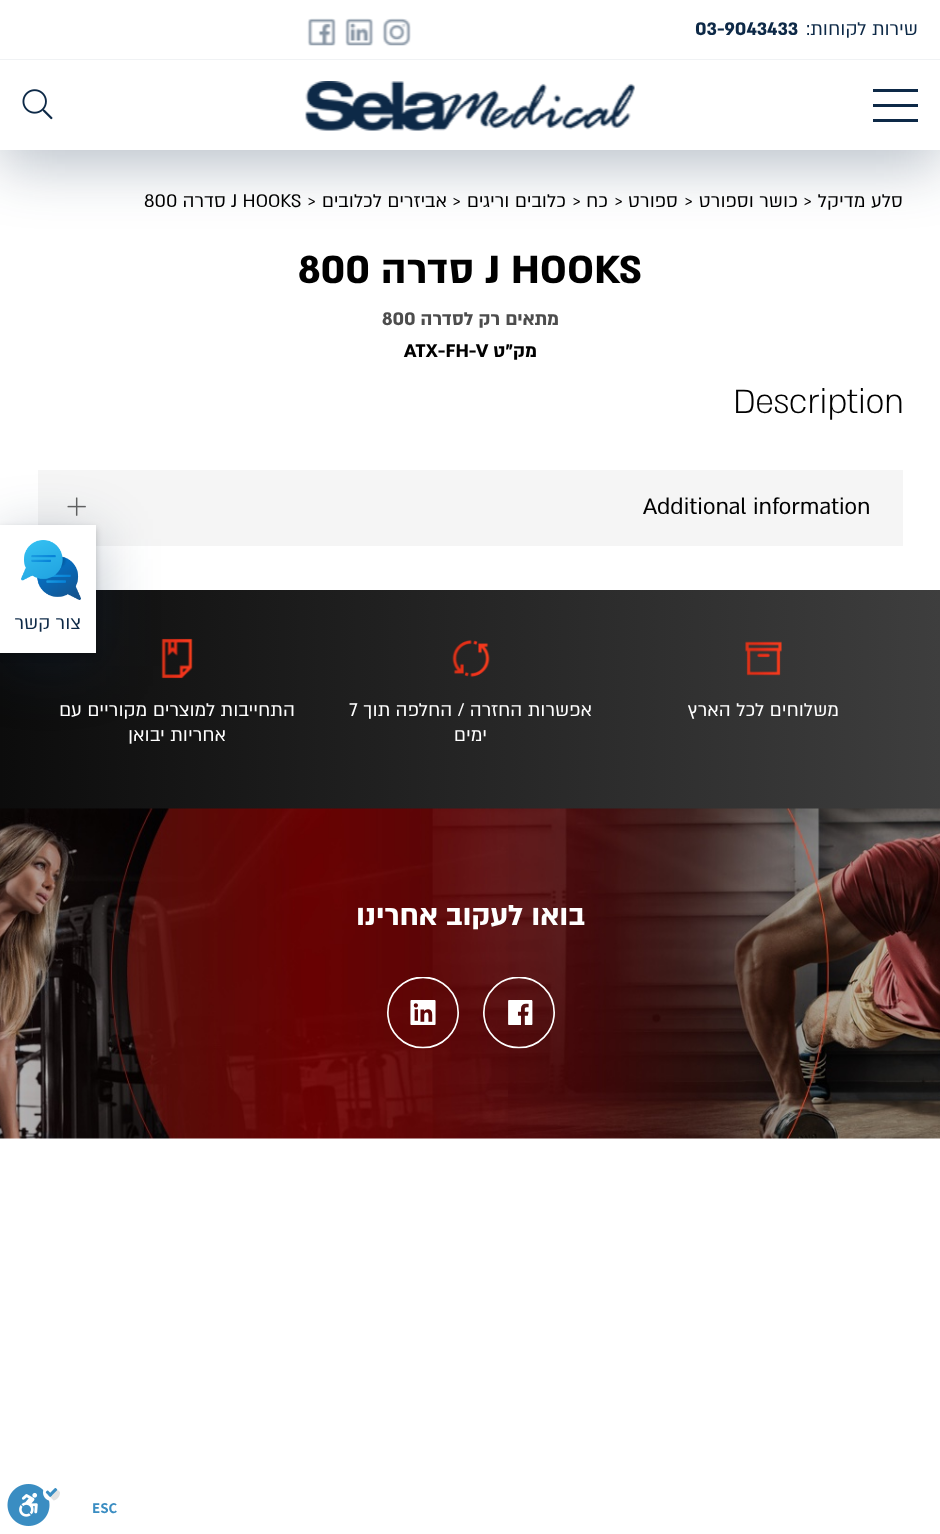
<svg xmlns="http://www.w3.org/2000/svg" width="940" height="1534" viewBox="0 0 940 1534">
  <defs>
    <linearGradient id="g1" gradientUnits="userSpaceOnUse" x1="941" y1="699" x2="0" y2="699"><stop offset="0" stop-color="#3e3e3e"/><stop offset="1" stop-color="#0c0c0c"/></linearGradient>
  </defs>
  <rect width="100%" height="100%" fill="#fff"/>
  <path d="M0 14h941v150H0z" fill="#0d29474d" filter="blur(30px)"/>
  <path d="M0 0h940v59H0z" fill="#fff"/>
  <path d="M0 59h940v1H0z" fill="#f0f2f4"/>
  <image x="382" y="18" width="29" height="28" href="img/1.png"/>
  <image x="345" y="18" width="29" height="28" href="img/2.png"/>
  <image x="307" y="18" width="29" height="28" href="img/3.png"/>
  <path d="M0 60h940v90H0z" fill="#fff"/>
  <path d="M873 89h45v3H873z" fill="#0d2947"/>
  <path d="M873 104h45v3H873z" fill="#0d2947"/>
  <path d="M873 119h45v3H873z" fill="#0d2947"/>
  <image x="305" y="81" width="330" height="50" href="img/4.png"/>
  <image x="22" y="89" width="31" height="31" href="img/5.png"/>
  <path d="M38 470h865v76H38z" fill="#f5f5f5"/>
  <image x="67" y="497" width="19" height="19" href="img/6.png"/>
  <path d="M0 590h940v219H0z" fill="url(#g1)"/>
  <image x="745" y="641" width="37" height="35" href="img/7.png"/>
  <image x="452" y="640" width="38" height="37" href="img/8.png"/>
  <image x="161" y="638" width="32" height="41" href="img/9.png"/>
  <image x="0" y="808" width="940" height="331" href="img/10.png"/>
  <image x="483" y="977" width="72" height="72" href="img/11.png"/>
  <image x="387" y="977" width="72" height="72" href="img/12.png"/>
  <path d="M0 539h96v127H0z" fill="#0d29474d" filter="blur(30px)"/>
  <path d="M0 528h96v128H0z" fill="#00000030" filter="blur(3px)"/>
  <path d="M0 525h96v128H0z" fill="#fff"/>
  <image x="21" y="540" width="60" height="60" href="img/13.png"/>
  <image x="7" y="1484" width="53" height="42" href="img/14.png"/>
  <text x="918" y="35" font-family="'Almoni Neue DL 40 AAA'" font-size="21" direction="rtl" fill="#0d2947">שירות לקוחות:</text>
  <text x="695" y="35" font-family="'Almoni Neue DL 40 AAA'" font-size="21" font-weight="bold" fill="#0d2947">03-9043433</text>
  <text x="903" y="207" font-family="'Almoni Neue DL 40 AAA'" font-size="21" direction="rtl" fill="#000">סלע מדיקל</text>
  <text x="803" y="207" font-family="'Almoni Neue DL 40 AAA'" font-size="21" fill="#000">&gt;</text>
  <text x="798" y="207" font-family="'Almoni Neue DL 40 AAA'" font-size="21" direction="rtl" fill="#000">כושר וספורט</text>
  <text x="684" y="207" font-family="'Almoni Neue DL 40 AAA'" font-size="21" fill="#000">&gt;</text>
  <text x="678" y="207" font-family="'Almoni Neue DL 40 AAA'" font-size="21" direction="rtl" fill="#000">ספורט</text>
  <text x="614" y="207" font-family="'Almoni Neue DL 40 AAA'" font-size="21" fill="#000">&gt;</text>
  <text x="608" y="207" font-family="'Almoni Neue DL 40 AAA'" font-size="21" direction="rtl" fill="#000">כח</text>
  <text x="572" y="207" font-family="'Almoni Neue DL 40 AAA'" font-size="21" fill="#000">&gt;</text>
  <text x="566" y="207" font-family="'Almoni Neue DL 40 AAA'" font-size="21" direction="rtl" fill="#000">כלובים וריגים</text>
  <text x="452" y="207" font-family="'Almoni Neue DL 40 AAA'" font-size="21" fill="#000">&gt;</text>
  <text x="447" y="207" font-family="'Almoni Neue DL 40 AAA'" font-size="21" direction="rtl" fill="#000">אביזרים לכלובים</text>
  <g font-family="'Almoni Neue DL 40 AAA'" font-size="21" fill="#000">
    <text x="307" y="207">&gt;</text>
    <text x="231" y="207">J HOOKS</text>
  </g>
  <text x="226" y="207" font-family="'Almoni Neue DL 40 AAA'" font-size="21" direction="rtl" fill="#000">סדרה</text>
  <text x="144" y="207" font-family="'Almoni Neue DL 40 AAA'" font-size="21" fill="#000">800</text>
  <text x="485" y="283" font-family="'Almoni Neue DL 40 AAA'" font-size="45" font-weight="bold" fill="#000">J HOOKS</text>
  <text x="474" y="283" font-family="'Almoni Neue DL 40 AAA'" font-size="45" font-weight="bold" direction="rtl" fill="#000">סדרה</text>
  <text x="298" y="283" font-family="'Almoni Neue DL 40 AAA'" font-size="45" font-weight="bold" fill="#000">800</text>
  <text x="559" y="325" font-family="'Almoni Neue DL 40 AAA'" font-size="21" font-weight="bold" direction="rtl" fill="#4d4d4d">מתאים רק לסדרה</text>
  <text x="382" y="325" font-family="'Almoni Neue DL 40 AAA'" font-size="21" font-weight="bold" fill="#4d4d4d">800</text>
  <text x="537" y="357" font-family="'Almoni Neue DL 40 AAA'" font-size="21" font-weight="bold" direction="rtl" fill="#000">מק"ט</text>
  <text x="404" y="357" font-family="'Almoni Neue DL 40 AAA'" font-size="21" font-weight="bold" fill="#000">ATX-FH-V</text>
  <text x="733" y="413" font-family="'Almoni Neue DL 40 AAA'" font-size="38.5" font-weight="300" fill="#000">Description</text>
  <text x="643" y="514" font-family="'Almoni Neue DL 40 AAA'" font-size="25.5" fill="#000">Additional information</text>
  <g font-family="'Almoni Neue DL 40 AAA'" font-size="21" direction="rtl" fill="#fff">
    <text x="839" y="716">משלוחים לכל הארץ</text>
    <text x="592" y="716">אפשרות החזרה / החלפה תוך</text>
  </g>
  <text x="349" y="716" font-family="'Almoni Neue DL 40 AAA'" font-size="21" fill="#fff">7</text>
  <g font-family="'Almoni Neue DL 40 AAA'" font-size="21" direction="rtl" fill="#fff">
    <text x="487" y="741">ימים</text>
    <text x="295" y="716">התחייבות למוצרים מקוריים עם</text>
    <text x="226" y="741">אחריות יבואן</text>
  </g>
  <text x="585" y="925" font-family="'Almoni Neue DL 40 AAA'" font-size="33" font-weight="bold" direction="rtl" fill="#fff">בואו לעקוב אחרינו</text>
  <text x="81" y="629" font-family="'Almoni Neue DL 40 AAA'" font-size="21" direction="rtl" fill="#0d2947">צור קשר</text>
  <text x="92" y="1513" font-family="Assistant" font-size="15" font-weight="bold" fill="#3a8dc2">ESC</text>
</svg>
